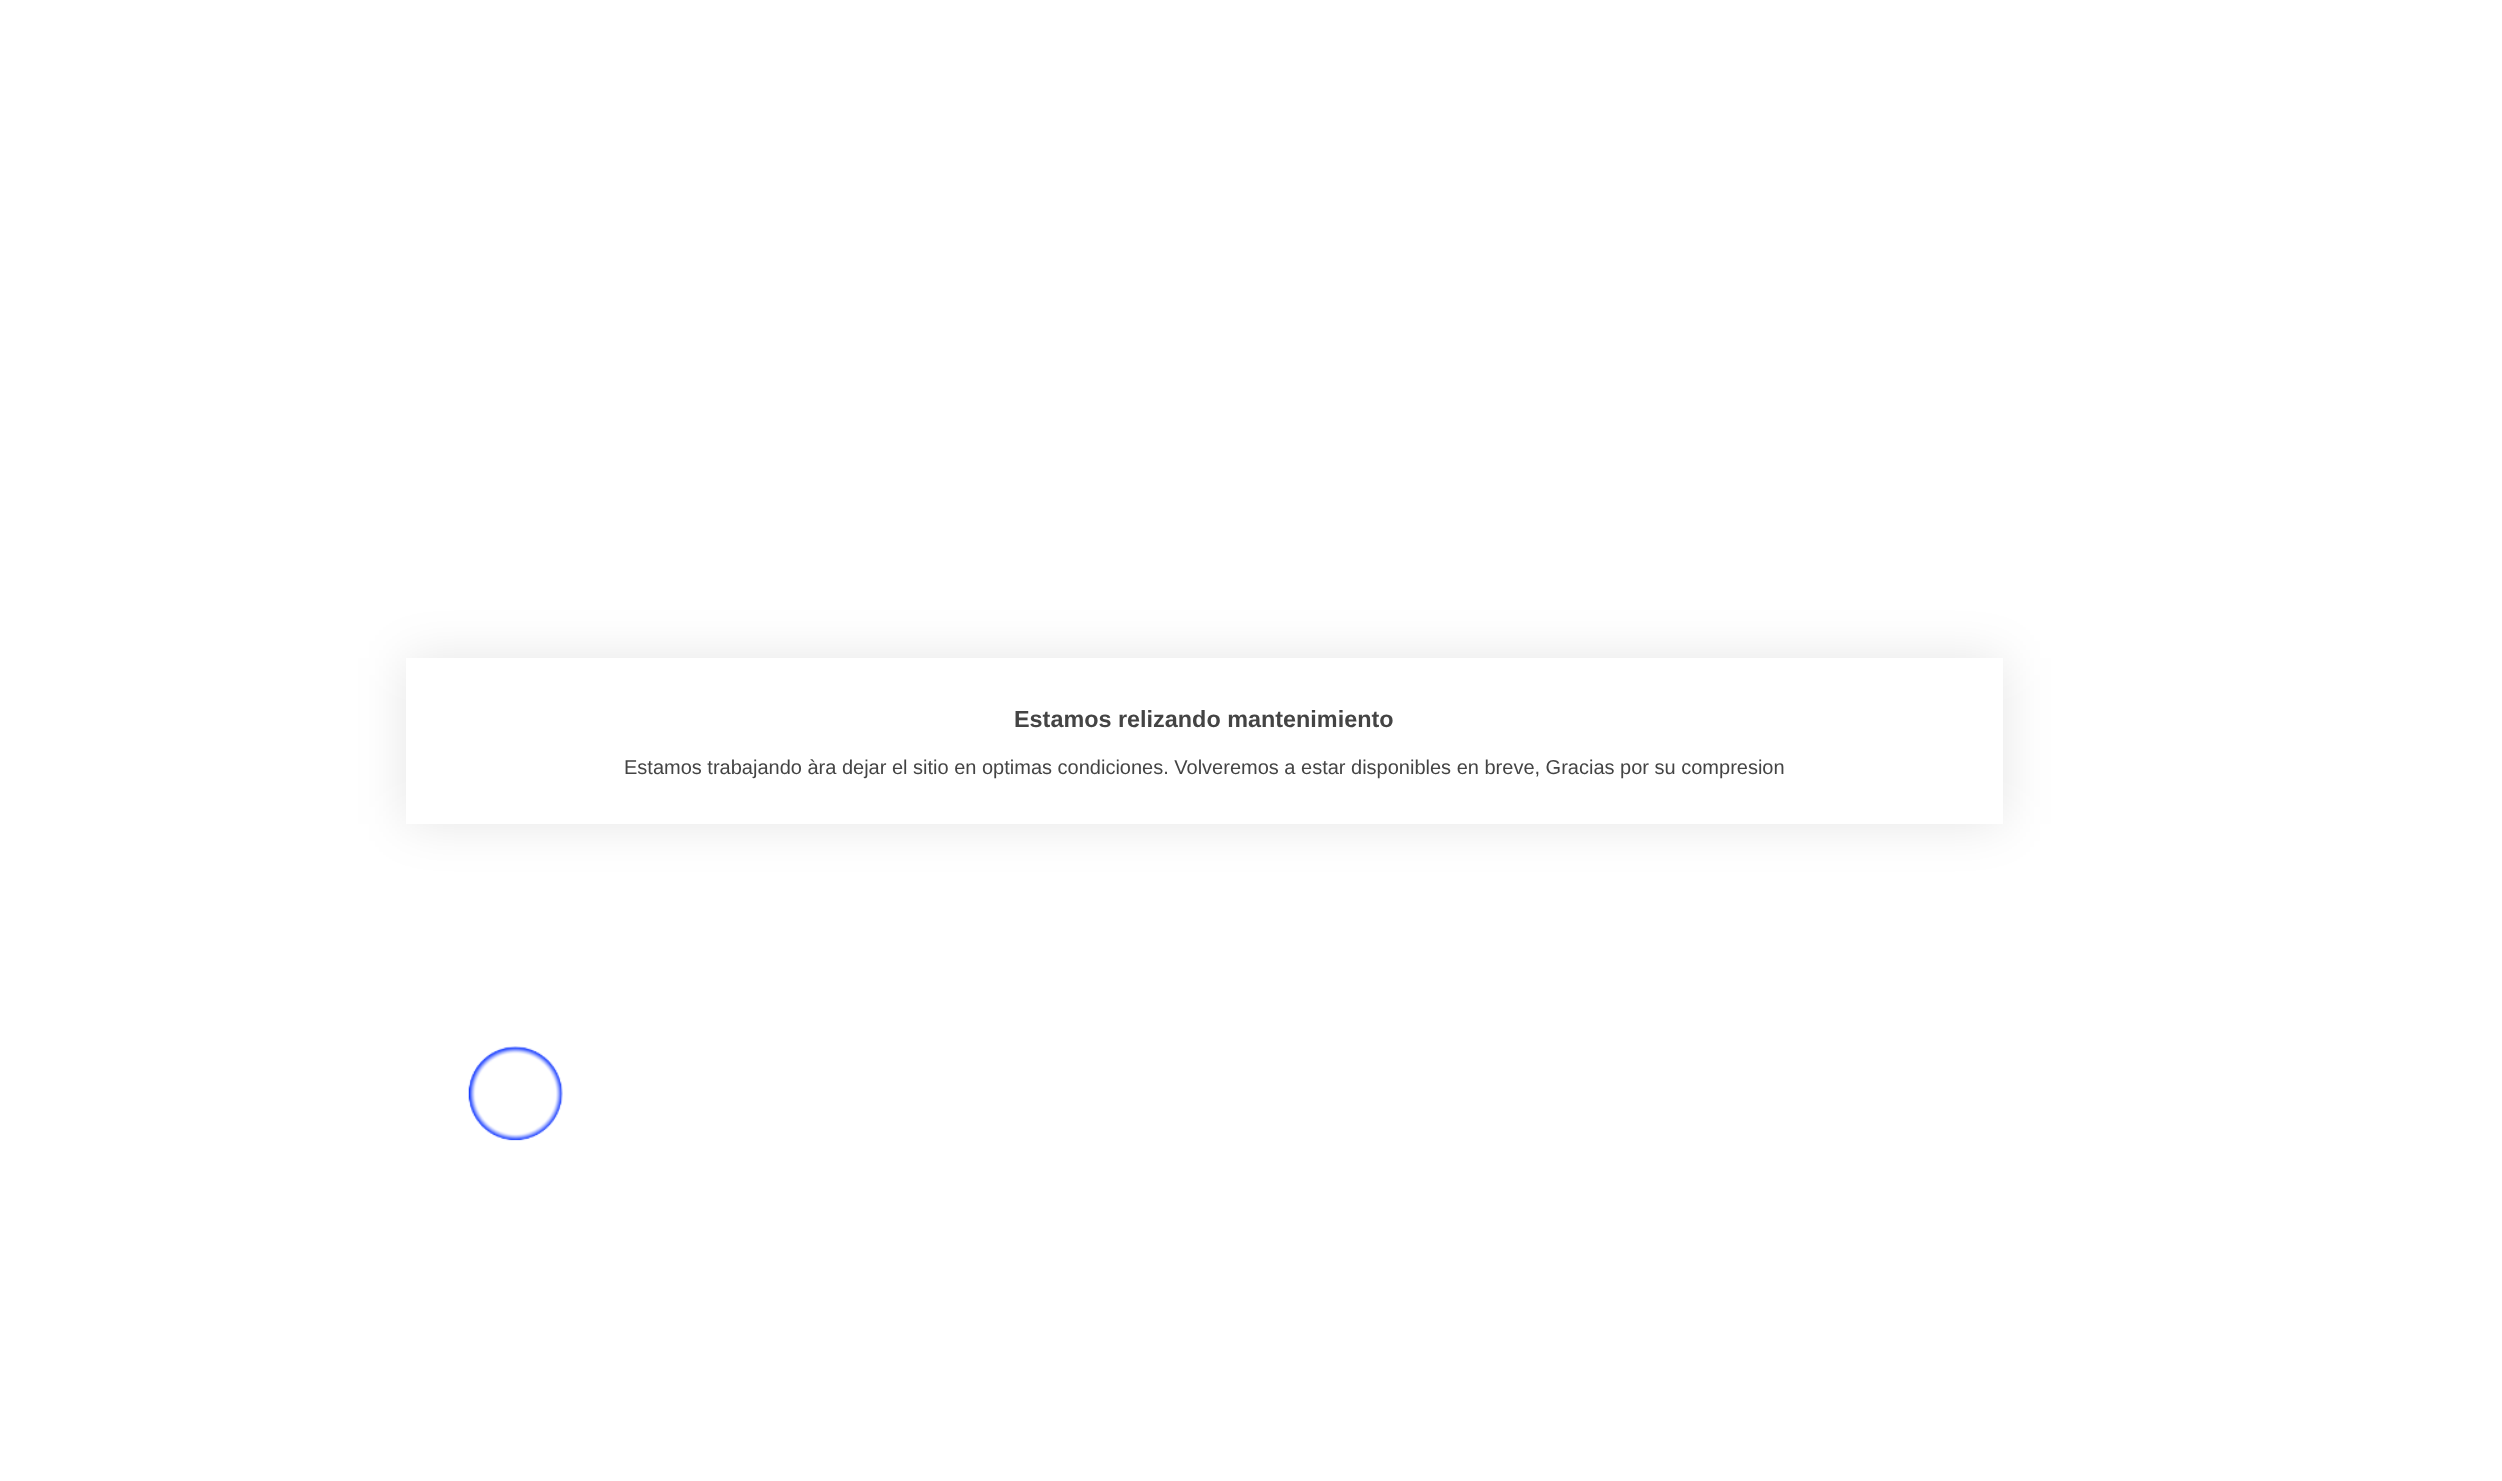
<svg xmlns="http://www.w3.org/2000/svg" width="2502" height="1481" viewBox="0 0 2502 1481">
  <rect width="100%" height="100%" fill="#fff"/>
  <path d="M406 658h1597v166H406z" fill="#0000001a" filter="blur(25px)"/>
  <path d="M406 658h1597v166H406z" fill="#fff"/>
  <image x="468" y="1046" width="95" height="95" href="img/1.png"/>
  <text x="1014" y="727" font-family="Liberation Sans" font-size="23.4" font-weight="bold" fill="#444">Estamos relizando mantenimiento</text>
  <text x="624" y="774" font-family="Liberation Sans" font-size="20" fill="#444">Estamos trabajando àra dejar el sitio en optimas condiciones. Volveremos a estar disponibles en breve, Gracias por su compresion</text>
</svg>
